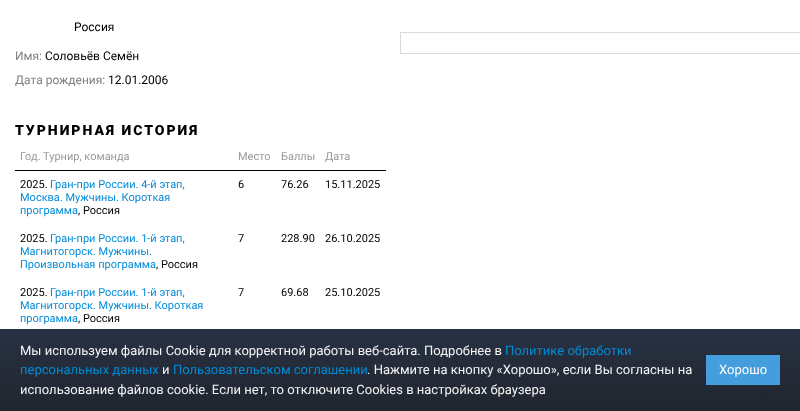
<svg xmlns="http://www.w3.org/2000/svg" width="800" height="411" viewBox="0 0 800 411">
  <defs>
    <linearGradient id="g1" gradientUnits="userSpaceOnUse" x1="400" y1="329" x2="400" y2="411"><stop offset="0" stop-color="#283244"/><stop offset="1" stop-color="#151a23" stop-opacity="0.95"/></linearGradient>
  </defs>
  <rect width="100%" height="100%" fill="#fff"/>
  <path d="M15 170h371v1H15z" fill="#000"/>
  <path d="M385 224h1v1H385z" fill="#e5e5e5"/>
  <path d="M385 278h1v1H385z" fill="#e5e5e5"/>
  <path d="M385 373h1v1H385z" fill="#e5e5e5"/>
  <path d="M400 32h400v1H400z" fill="#d9d9d9"/>
  <path d="M400 53h400v1H400z" fill="#d9d9d9"/>
  <path d="M400 32h1v22H400z" fill="#d9d9d9"/>
  <path d="M0 329h800v82H0z" fill="url(#g1)"/>
  <path d="M706 355h74v30H706z" fill="#449ddd"/>
  <text x="74" y="31" font-family="Roboto" font-size="12" fill="#000">Россия</text>
  <text x="15" y="60" font-family="Roboto" font-size="12" fill="#808080">Имя:</text>
  <text x="45" y="60" font-family="Roboto" font-size="12" fill="#000">Соловьёв Семён</text>
  <text x="15" y="84" font-family="Roboto" font-size="12" fill="#808080">Дата рождения:</text>
  <text x="108" y="84" font-family="Roboto" font-size="12" fill="#000">12.01.2006</text>
  <text x="15" y="135" font-family="Roboto" font-size="14" font-weight="900" letter-spacing="2" fill="#000">ТУРНИРНАЯ ИСТОРИЯ</text>
  <g font-family="Roboto" font-size="11" fill="#999">
    <text x="20" y="160">Год. Турнир, команда</text>
    <text x="238" y="160">Место</text>
    <text x="281" y="160">Баллы</text>
    <text x="325" y="160">Дата</text>
  </g>
  <text x="20" y="188" font-family="Roboto" font-size="11" fill="#000">2025.</text>
  <g font-family="Roboto" font-size="11" fill="#008bd7">
    <text x="50" y="188">Гран-при России. 4-й этап,</text>
    <text x="20" y="201">Москва. Мужчины. Короткая</text>
    <text x="20" y="214">программа</text>
  </g>
  <g font-family="Roboto" font-size="11" fill="#000">
    <text x="78" y="214">, Россия</text>
    <text x="238" y="188">6</text>
    <text x="281" y="188">76.26</text>
    <text x="325" y="188">15.11.2025</text>
    <text x="20" y="242">2025.</text>
  </g>
  <g font-family="Roboto" font-size="11" fill="#008bd7">
    <text x="50" y="242">Гран-при России. 1-й этап,</text>
    <text x="20" y="255">Магнитогорск. Мужчины.</text>
    <text x="20" y="268">Произвольная программа</text>
  </g>
  <g font-family="Roboto" font-size="11" fill="#000">
    <text x="156" y="268">, Россия</text>
    <text x="238" y="242">7</text>
    <text x="281" y="242">228.90</text>
    <text x="325" y="242">26.10.2025</text>
    <text x="20" y="296">2025.</text>
  </g>
  <g font-family="Roboto" font-size="11" fill="#008bd7">
    <text x="50" y="296">Гран-при России. 1-й этап,</text>
    <text x="20" y="309">Магнитогорск. Мужчины. Короткая</text>
    <text x="20" y="322">программа</text>
  </g>
  <g font-family="Roboto" font-size="11" fill="#000">
    <text x="78" y="322">, Россия</text>
    <text x="238" y="296">7</text>
    <text x="281" y="296">69.68</text>
    <text x="325" y="296">25.10.2025</text>
  </g>
  <text x="20" y="355" font-family="Roboto" font-size="13" fill="#f5f5f5">Мы используем файлы Сookie для корректной работы веб-сайта. Подробнее в</text>
  <g font-family="Roboto" font-size="13" fill="#008bd7">
    <text x="505" y="355">Политике обработки</text>
    <text x="20" y="374">персональных данных</text>
  </g>
  <text x="162" y="374" font-family="Roboto" font-size="13" fill="#f5f5f5">и</text>
  <text x="173" y="374" font-family="Roboto" font-size="13" fill="#008bd7">Пользовательском соглашении</text>
  <g font-family="Roboto" font-size="13" fill="#f5f5f5">
    <text x="367" y="374">. Нажмите на кнопку «Хорошо», если Вы согласны на</text>
    <text x="20" y="394">использование файлов cookie. Если нет, то отключите Cookies в настройках браузера</text>
  </g>
  <text x="719" y="374" font-family="Roboto" font-size="13" fill="#fff">Хорошо</text>
</svg>
